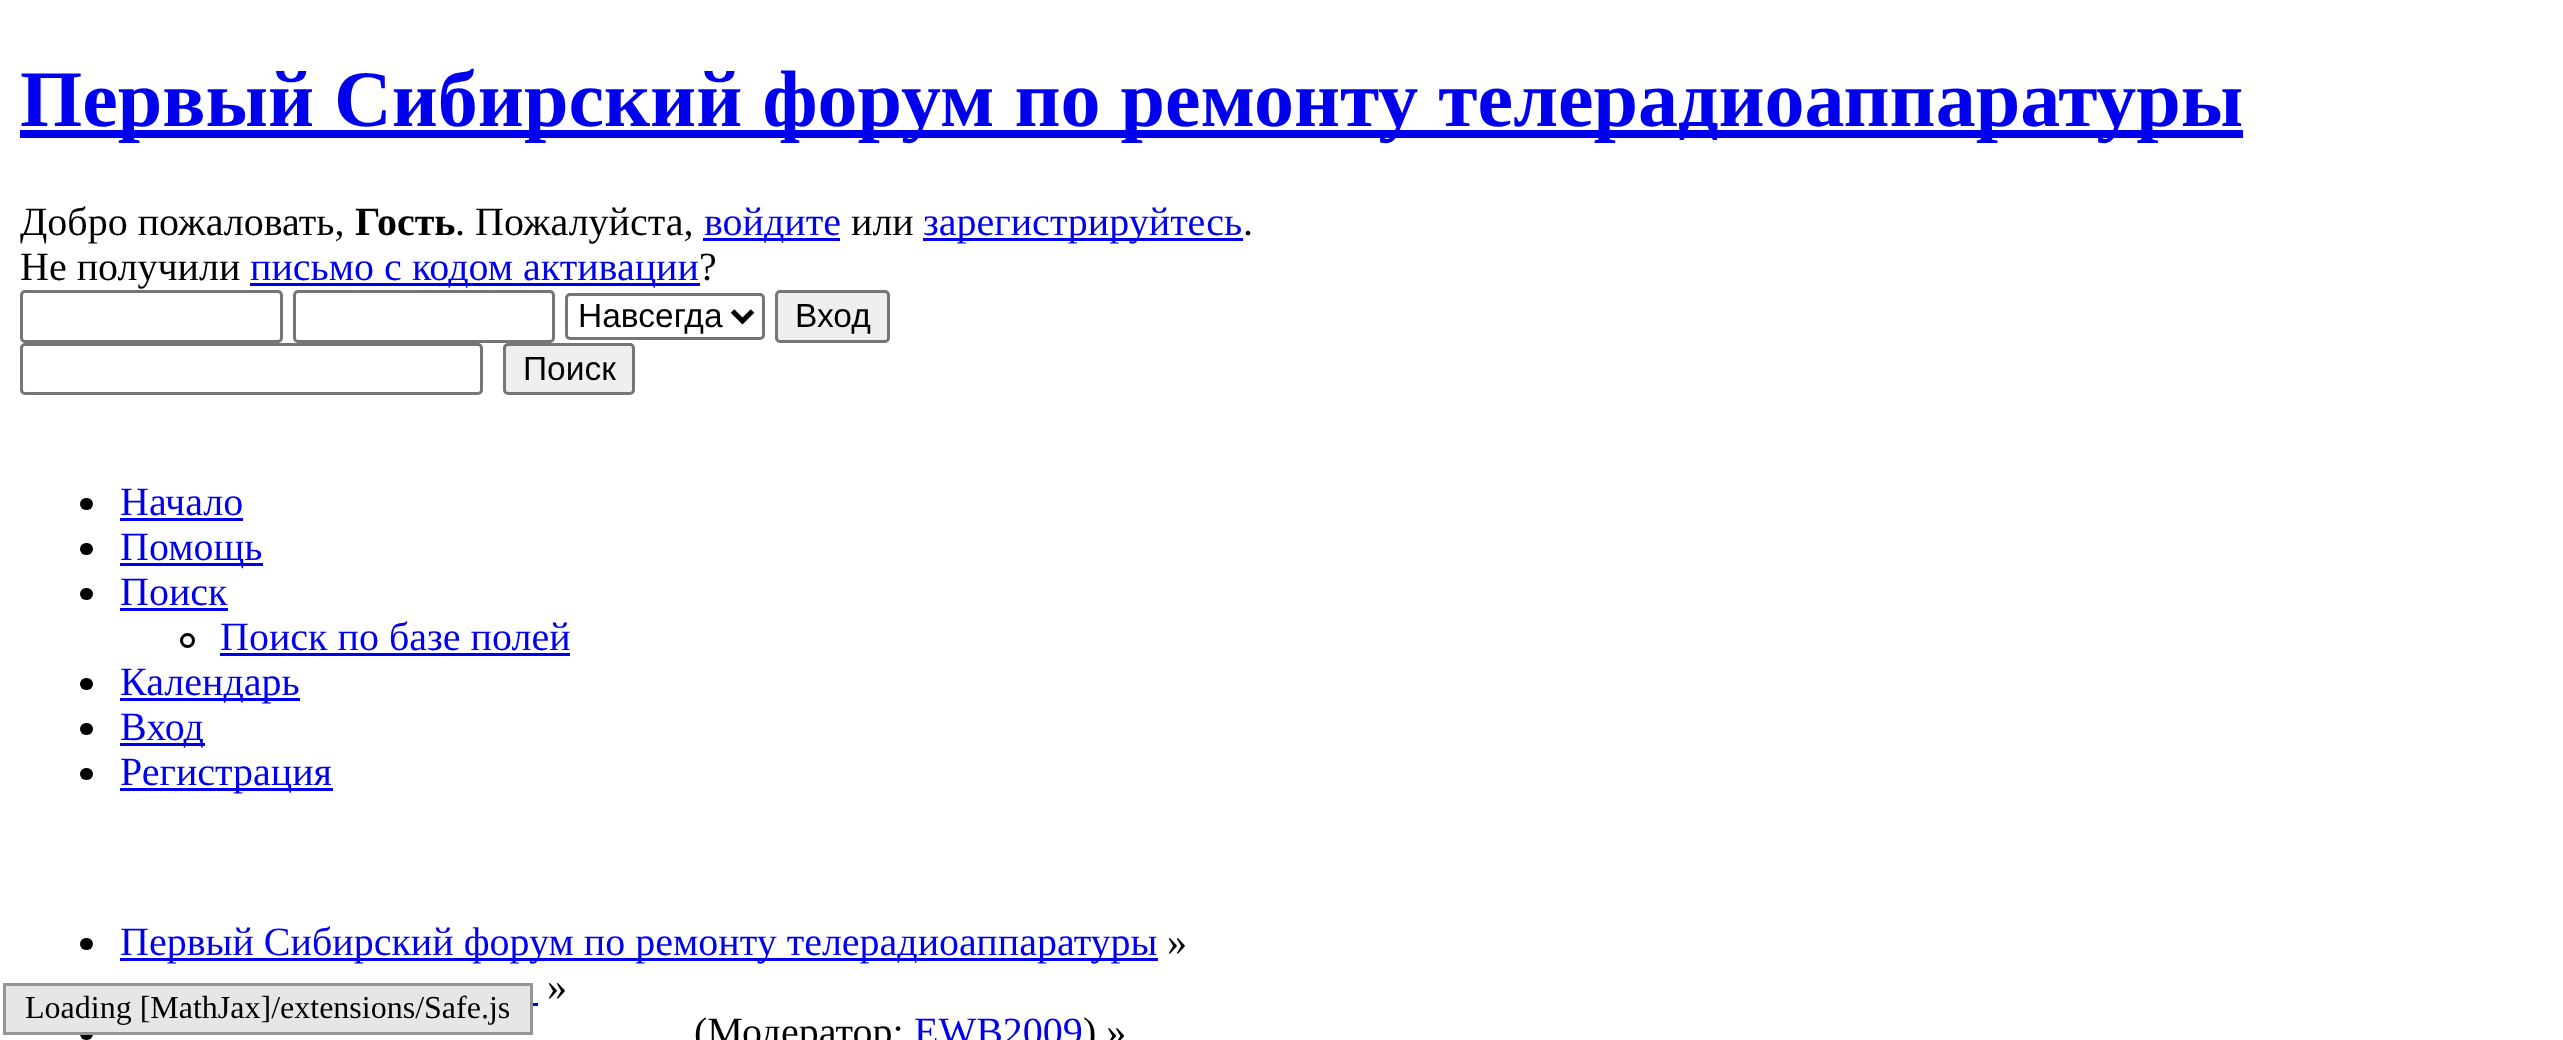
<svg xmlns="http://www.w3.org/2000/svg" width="2563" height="1040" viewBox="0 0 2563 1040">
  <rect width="100%" height="100%" fill="#fff"/>
  <path d="M20 130h2223v8H20z" fill="#00e"/>
  <path d="M703 238h137v3H703z" fill="#00e"/>
  <path d="M923 238h320v3H923z" fill="#00e"/>
  <path d="M250 283h450v3H250z" fill="#00e"/>
  <rect x="21.5" y="291.5" width="260" height="50" rx="3.5" fill="none" stroke="#767676" stroke-width="3"/>
  <rect x="294.5" y="291.5" width="259" height="50" rx="3.5" fill="none" stroke="#767676" stroke-width="3"/>
  <rect x="566.5" y="294.5" width="197" height="44" rx="3.5" fill="none" stroke="#767676" stroke-width="3"/>
  <path d="M732.5 311L742.5 321L752.5 311" fill="none" stroke="#000" stroke-width="5"/>
  <rect x="776.5" y="291.5" width="112" height="50" rx="3.5" fill="#efefef" stroke="#767676" stroke-width="3"/>
  <rect x="21.5" y="344.5" width="460" height="49" rx="3.5" fill="none" stroke="#767676" stroke-width="3"/>
  <rect x="504.5" y="344.5" width="129" height="49" rx="3.5" fill="#efefef" stroke="#767676" stroke-width="3"/>
  <rect x="80" y="498" width="13" height="12" rx="6" fill="#000"/>
  <path d="M120 518h123v3H120z" fill="#00e"/>
  <rect x="80" y="543" width="13" height="12" rx="6" fill="#000"/>
  <path d="M120 563h143v3H120z" fill="#00e"/>
  <rect x="80" y="588" width="13" height="12" rx="6" fill="#000"/>
  <path d="M120 608h108v3H120z" fill="#00e"/>
  <circle cx="187.5" cy="640.5" r="6" fill="none" stroke="#000" stroke-width="3"/>
  <path d="M220 653h350v3H220z" fill="#00e"/>
  <rect x="80" y="678" width="13" height="12" rx="6" fill="#000"/>
  <path d="M120 698h180v3H120z" fill="#00e"/>
  <rect x="80" y="723" width="13" height="12" rx="6" fill="#000"/>
  <path d="M120 743h85v3H120z" fill="#00e"/>
  <rect x="80" y="768" width="13" height="12" rx="6" fill="#000"/>
  <path d="M120 788h213v3H120z" fill="#00e"/>
  <rect x="80" y="938" width="13" height="12" rx="6" fill="#000"/>
  <path d="M120 958h1038v3H120z" fill="#00e"/>
  <path d="M533 1003h5v3H533z" fill="#00e"/>
  <rect x="80" y="1028" width="13" height="12" rx="6" fill="#000"/>
  <path d="M4.5 984.5h527v49H4.5z" fill="#e6e6e6" stroke="#959595" stroke-width="3"/>
  <text x="20" y="126" font-family="Liberation Serif" font-size="80" font-weight="bold" fill="#00e">Первый Сибирский форум по ремонту телерадиоаппаратуры</text>
  <text x="20" y="235" font-family="Liberation Serif" font-size="40" fill="#000">Добро пожаловать,</text>
  <text x="355" y="235" font-family="Liberation Serif" font-size="40" font-weight="bold" fill="#000">Гость</text>
  <text x="455" y="235" font-family="Liberation Serif" font-size="40" fill="#000">. Пожалуйста,</text>
  <text x="704" y="235" font-family="Liberation Serif" font-size="40" fill="#00e">войдите</text>
  <text x="851" y="235" font-family="Liberation Serif" font-size="40" fill="#000">или</text>
  <text x="923" y="235" font-family="Liberation Serif" font-size="40" fill="#00e">зарегистрируйтесь</text>
  <g font-family="Liberation Serif" font-size="40" fill="#000">
    <text x="1243" y="235">.</text>
    <text x="20" y="280">Не получили</text>
  </g>
  <text x="250" y="280" font-family="Liberation Serif" font-size="40" fill="#00e">письмо с кодом активации</text>
  <text x="699" y="280" font-family="Liberation Serif" font-size="40" fill="#000">?</text>
  <g font-family="Liberation Sans" font-size="33.5" fill="#000">
    <text x="578" y="327">Навсегда</text>
    <text x="795" y="327">Вход</text>
    <text x="523" y="380">Поиск</text>
  </g>
  <g font-family="Liberation Serif" font-size="40" fill="#00e">
    <text x="120" y="515">Начало</text>
    <text x="120" y="560">Помощь</text>
    <text x="120" y="605">Поиск</text>
    <text x="220" y="650">Поиск по базе полей</text>
    <text x="120" y="695">Календарь</text>
    <text x="120" y="740">Вход</text>
    <text x="120" y="785">Регистрация</text>
    <text x="120" y="955">Первый Сибирский форум по ремонту телерадиоаппаратуры</text>
  </g>
  <g font-family="Liberation Serif" font-size="40" fill="#000">
    <text x="1167" y="955">»</text>
    <text x="547" y="1000">»</text>
    <text x="694" y="1045">(Модератор:</text>
  </g>
  <text x="914" y="1045" font-family="Liberation Serif" font-size="40" fill="#00e">EWB2009</text>
  <text x="1083" y="1045" font-family="Liberation Serif" font-size="40" fill="#000">) »</text>
  <text x="25" y="1018" font-family="Liberation Serif" font-size="32" fill="#000">Loading [MathJax]/extensions/Safe.js</text>
</svg>
